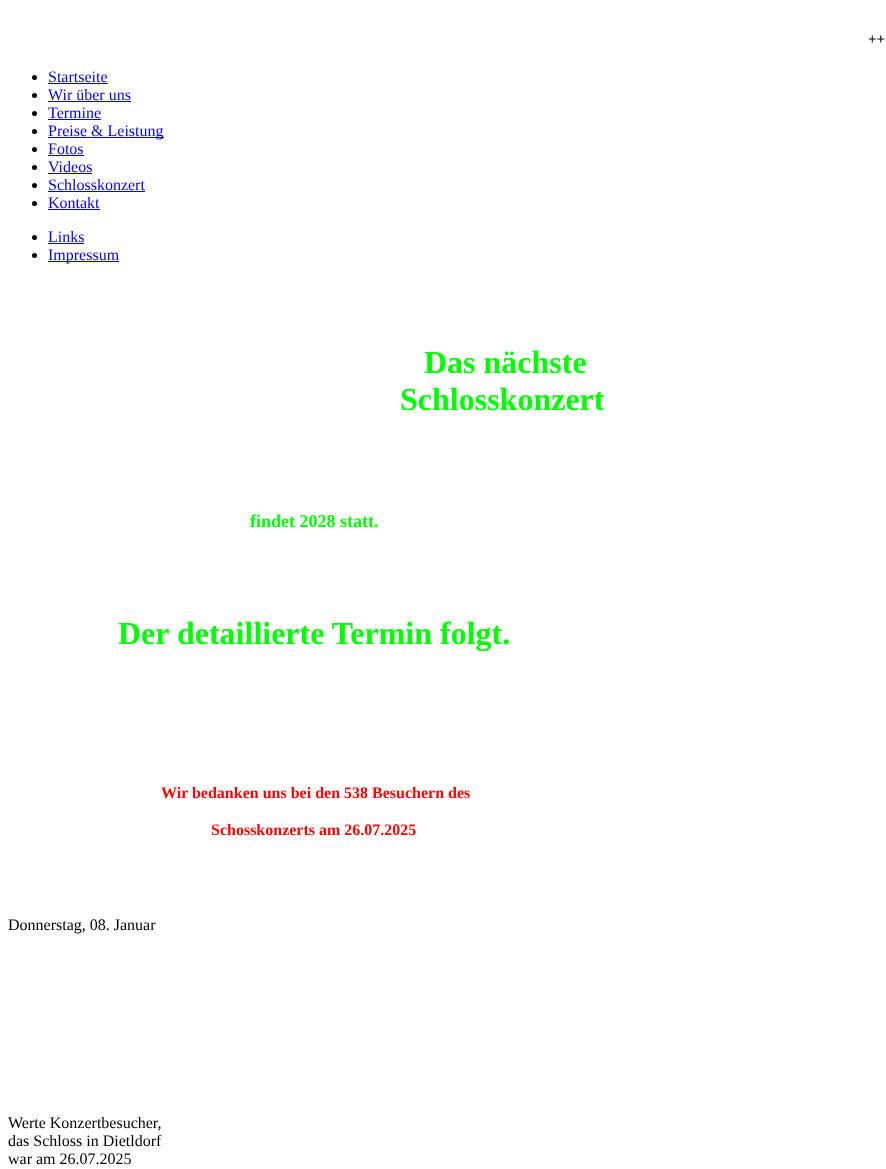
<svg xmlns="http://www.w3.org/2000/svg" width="886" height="1169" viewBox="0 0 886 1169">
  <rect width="100%" height="100%" fill="#fff"/>
  <circle cx="34.5" cy="77.5" r="2.5" fill="#000"/>
  <path d="M48 83h60v1H48z" fill="#00e"/>
  <circle cx="34.5" cy="95.5" r="2.5" fill="#000"/>
  <path d="M48 101h83v1H48z" fill="#00e"/>
  <circle cx="34.5" cy="113.5" r="2.5" fill="#000"/>
  <path d="M48 119h53v1H48z" fill="#00e"/>
  <circle cx="34.5" cy="131.5" r="2.5" fill="#000"/>
  <path d="M48 137h116v1H48z" fill="#00e"/>
  <circle cx="34.5" cy="149.5" r="2.5" fill="#000"/>
  <path d="M48 155h36v1H48z" fill="#00e"/>
  <circle cx="34.5" cy="167.5" r="2.5" fill="#000"/>
  <path d="M48 173h44v1H48z" fill="#00e"/>
  <circle cx="34.5" cy="185.5" r="2.5" fill="#000"/>
  <path d="M48 191h97v1H48z" fill="#00e"/>
  <circle cx="34.5" cy="203.5" r="2.5" fill="#000"/>
  <path d="M48 209h52v1H48z" fill="#00e"/>
  <circle cx="34.5" cy="237.5" r="2.5" fill="#000"/>
  <path d="M48 243h36v1H48z" fill="#00e"/>
  <circle cx="34.5" cy="255.5" r="2.5" fill="#000"/>
  <path d="M48 261h71v1H48z" fill="#00e"/>
  <text x="868" y="44" font-family="Liberation Serif" font-size="15" font-weight="bold" fill="#000">++</text>
  <g font-family="Liberation Serif" font-size="16" fill="#00e">
    <text x="48" y="82">Startseite</text>
    <text x="48" y="100">Wir über uns</text>
    <text x="48" y="118">Termine</text>
    <text x="48" y="136">Preise &amp; Leistung</text>
    <text x="48" y="154">Fotos</text>
    <text x="48" y="172">Videos</text>
    <text x="48" y="190">Schlosskonzert</text>
    <text x="48" y="208">Kontakt</text>
    <text x="48" y="242">Links</text>
    <text x="48" y="260">Impressum</text>
  </g>
  <g font-family="Liberation Serif" font-size="32" font-weight="bold" fill="#0f0">
    <text x="424" y="373">Das nächste</text>
    <text x="400" y="410">Schlosskonzert</text>
  </g>
  <text x="250" y="527" font-family="Liberation Serif" font-size="18" font-weight="bold" fill="#0f0">findet 2028 statt.</text>
  <text x="118" y="644" font-family="Liberation Serif" font-size="32" font-weight="bold" fill="#0f0">Der detaillierte Termin folgt.</text>
  <g font-family="Liberation Serif" font-size="16" font-weight="bold" fill="#f00">
    <text x="161" y="798">Wir bedanken uns bei den 538 Besuchern des</text>
    <text x="211" y="835">Schosskonzerts am 26.07.2025</text>
  </g>
  <g font-family="Liberation Serif" font-size="16" fill="#000">
    <text x="8" y="930">Donnerstag, 08. Januar</text>
    <text x="8" y="1128">Werte Konzertbesucher,</text>
    <text x="8" y="1146">das Schloss in Dietldorf</text>
    <text x="8" y="1164">war am 26.07.2025</text>
  </g>
</svg>
